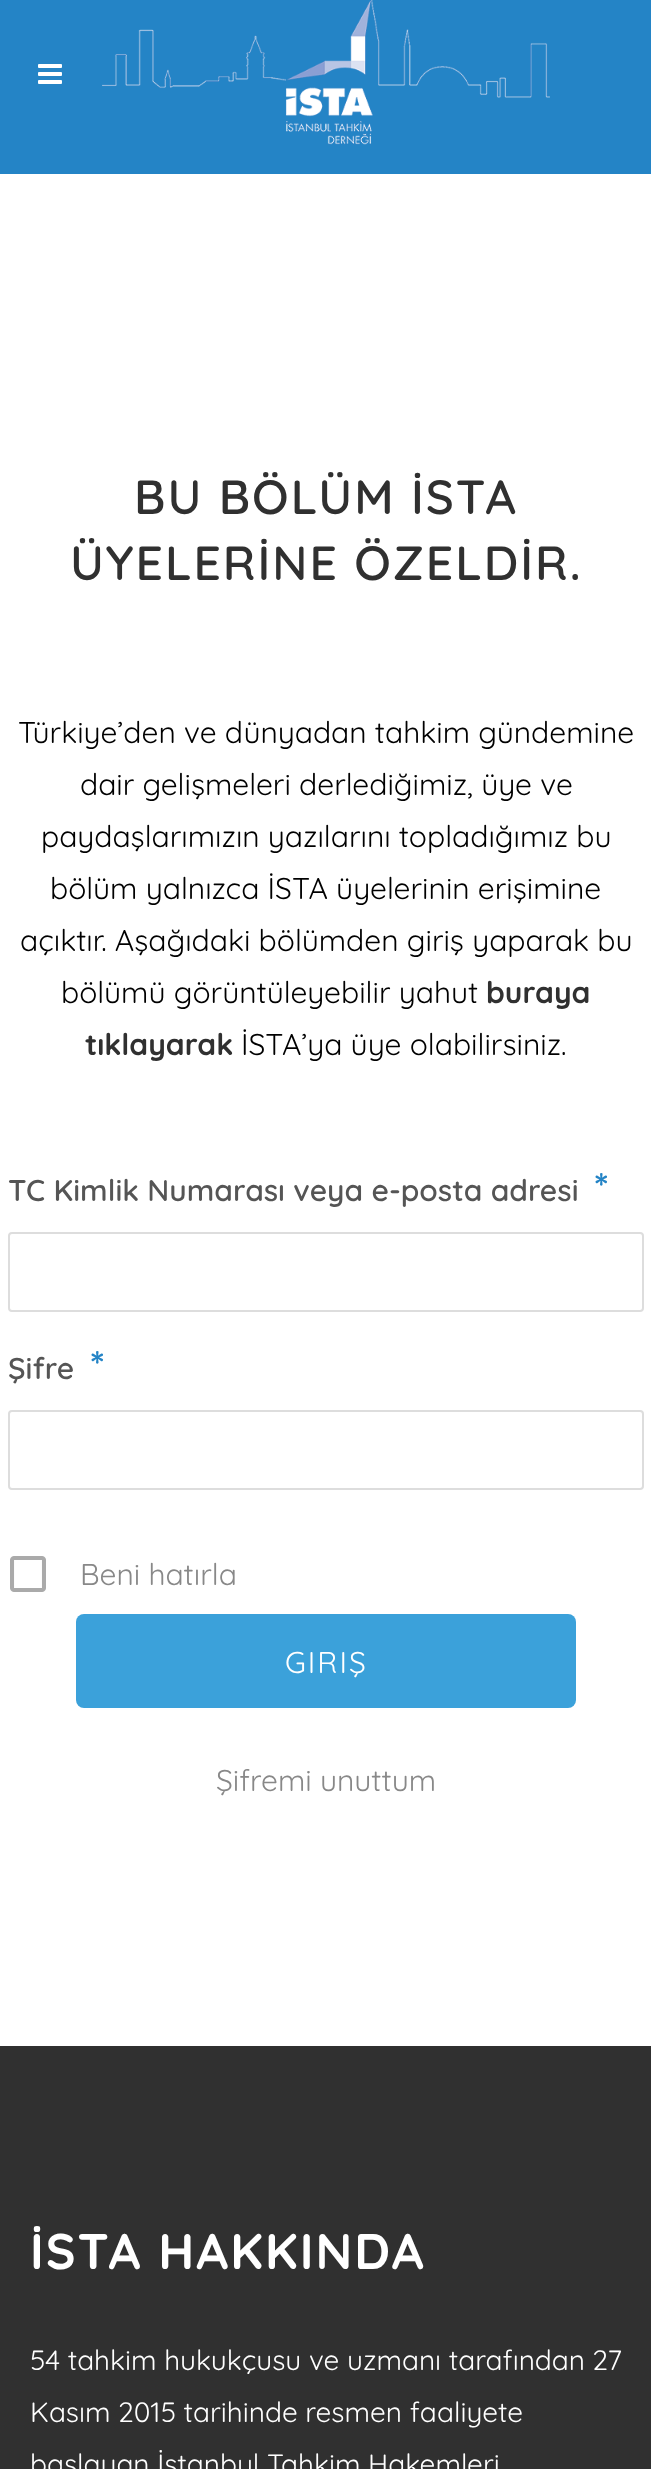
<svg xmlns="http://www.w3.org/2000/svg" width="651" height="2469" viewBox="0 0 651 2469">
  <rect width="100%" height="100%" fill="#fff"/>
  <path d="M0 0h651v174H0z" fill="#2484c6"/>
  <image x="38" y="64" width="24" height="20" href="img/1.png"/>
  <image x="102" y="0" width="448" height="145" href="img/2.png"/>
  <rect x="9" y="1233" width="634" height="78" rx="3" fill="none" stroke="#ddd" stroke-width="2"/>
  <rect x="9" y="1411" width="634" height="78" rx="3" fill="none" stroke="#ddd" stroke-width="2"/>
  <image x="10" y="1556" width="36" height="36" href="img/3.png"/>
  <rect x="76" y="1614" width="500" height="94" rx="8" fill="#3ba1da"/>
  <path d="M0 2046h651v423H0z" fill="#303030"/>
  <g font-family="Quicksand" font-size="48" font-weight="600" letter-spacing="2" fill="#303030">
    <text x="134" y="514">BU BÖLÜM İSTA</text>
    <text x="70" y="580">ÜYELERİNE ÖZELDİR.</text>
  </g>
  <g font-family="Quicksand" font-size="30" fill="#000">
    <text x="18" y="743">Türkiye’den ve dünyadan tahkim gündemine</text>
    <text x="80" y="795">dair gelişmeleri derlediğimiz, üye ve</text>
    <text x="41" y="847">paydaşlarımızın yazılarını topladığımız bu</text>
    <text x="50" y="899">bölüm yalnızca İSTA üyelerinin erişimine</text>
    <text x="20" y="951">açıktır. Aşağıdaki bölümden giriş yaparak bu</text>
    <text x="61" y="1003">bölümü görüntüleyebilir yahut</text>
  </g>
  <g font-family="Quicksand" font-size="30" font-weight="bold" fill="#303030">
    <text x="486" y="1003">buraya</text>
    <text x="85" y="1055">tıklayarak</text>
  </g>
  <text x="241" y="1055" font-family="Quicksand" font-size="30" fill="#000">İSTA’ya üye olabilirsiniz.</text>
  <text x="8" y="1201" font-family="Quicksand" font-size="30" font-weight="600" fill="#555">TC Kimlik Numarası veya e-posta adresi</text>
  <text x="594" y="1201" font-family="Quicksand" font-size="40" font-weight="bold" fill="#2484c6">*</text>
  <text x="8" y="1379" font-family="Quicksand" font-size="30" font-weight="600" fill="#555">Şifre</text>
  <text x="90" y="1379" font-family="Quicksand" font-size="40" font-weight="bold" fill="#2484c6">*</text>
  <text x="80" y="1585" font-family="Quicksand" font-size="30" fill="#888">Beni hatırla</text>
  <text x="285" y="1673" font-family="Quicksand" font-size="30" letter-spacing="2" fill="#fff">GIRIŞ</text>
  <text x="216" y="1791" font-family="Quicksand" font-size="30" fill="#888">Şifremi unuttum</text>
  <text x="30" y="2269" font-family="Quicksand" font-size="50" font-weight="bold" letter-spacing="2" fill="#fff">İSTA HAKKINDA</text>
  <g font-family="Quicksand" font-size="28" fill="#fff">
    <text x="30" y="2370">54 tahkim hukukçusu ve uzmanı tarafından 27</text>
    <text x="30" y="2422">Kasım 2015 tarihinde resmen faaliyete</text>
    <text x="30" y="2474">başlayan İstanbul Tahkim Hakemleri</text>
  </g>
</svg>
